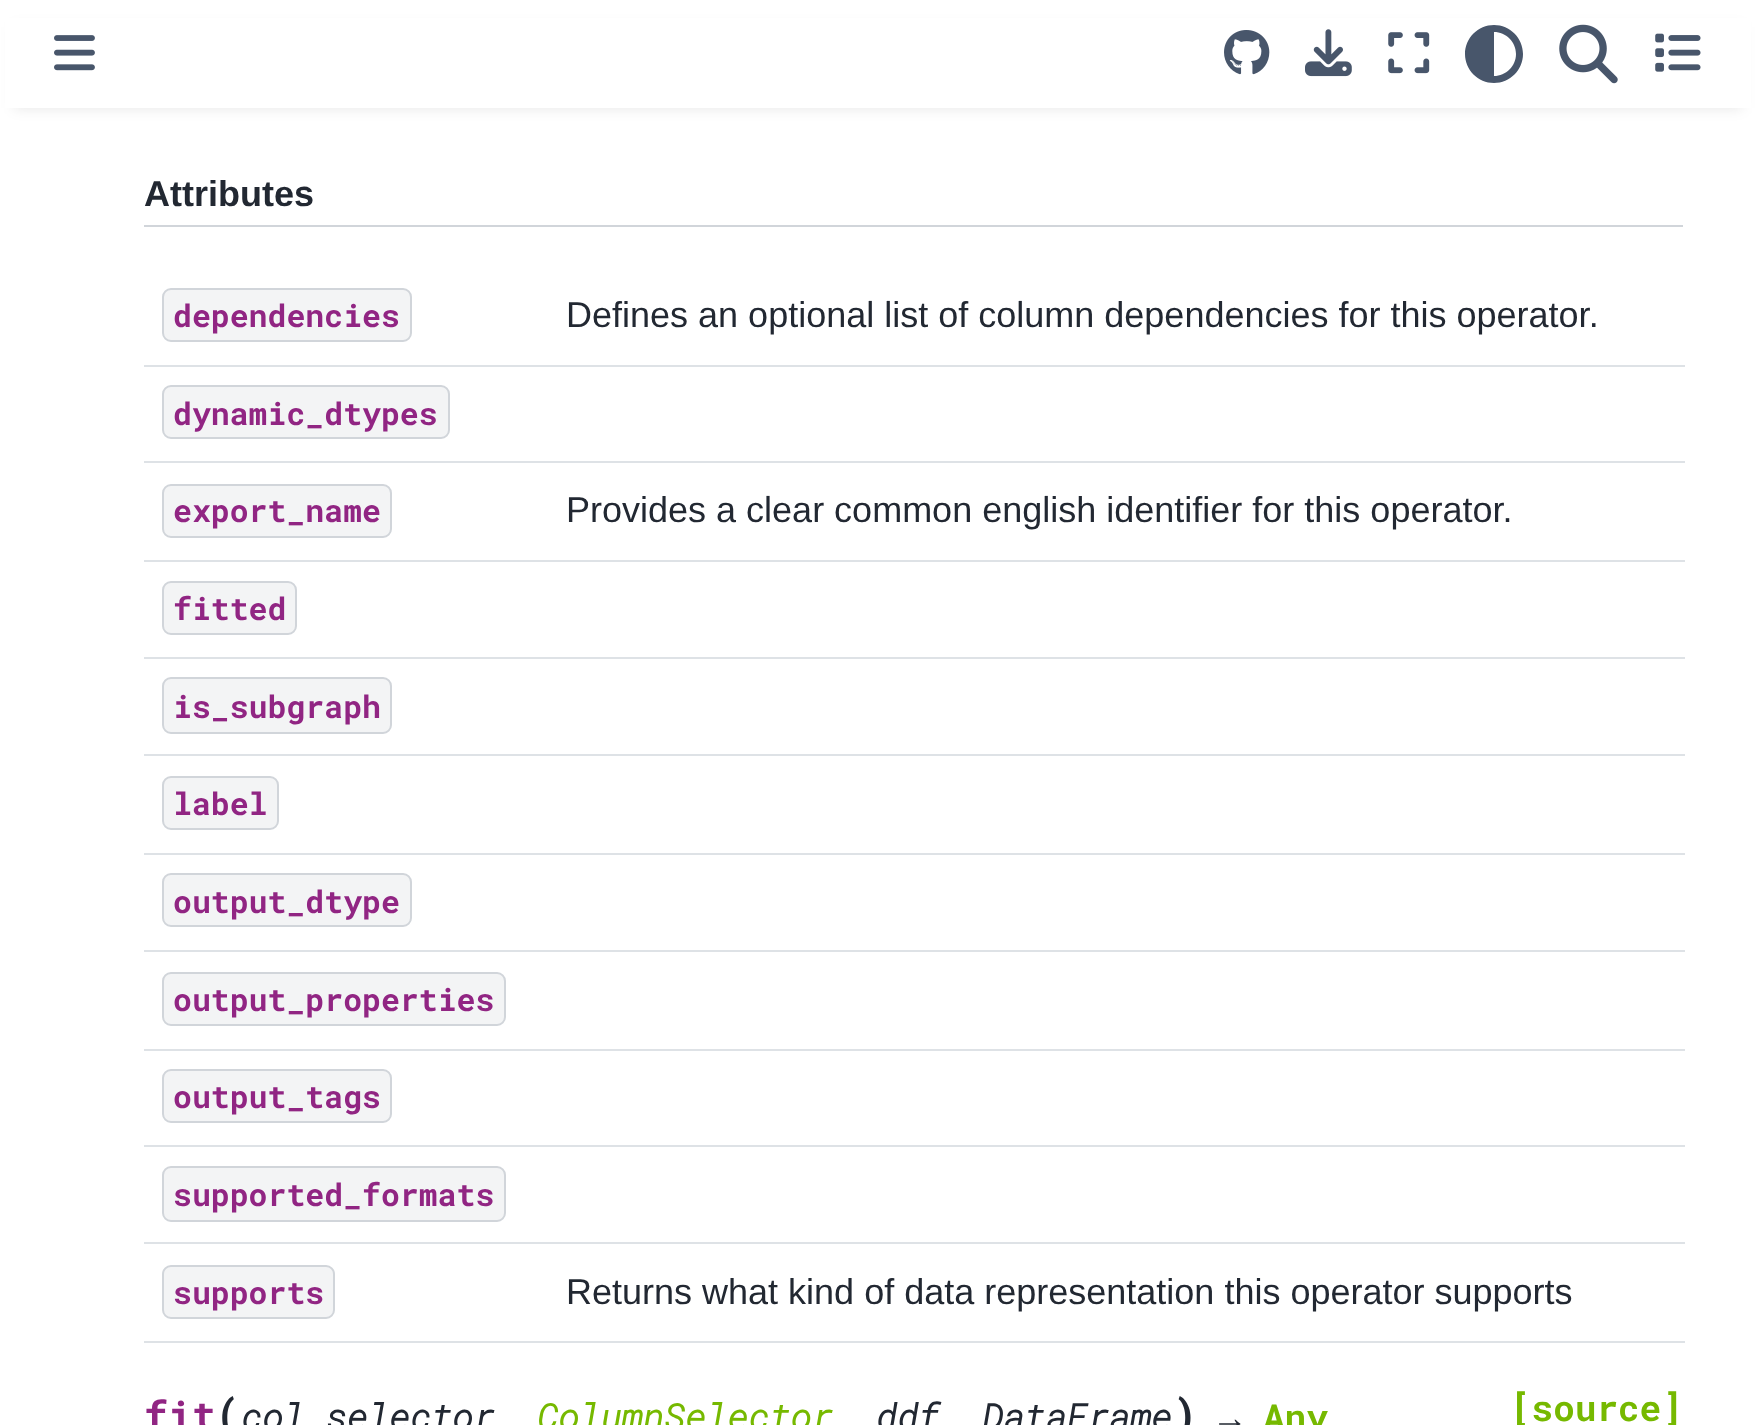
<svg xmlns="http://www.w3.org/2000/svg" width="1755" height="1425" viewBox="0 0 1755 1425">
  <rect width="100%" height="100%" fill="#fff"/>
  <path d="M14 27h1728v81H14z" fill="#0000001a" filter="blur(7px)"/>
  <path d="M5 18h1746v90H5z" fill="#fff"/>
  <image x="54" y="35" width="41" height="36" href="img/1.png"/>
  <image x="1224" y="30" width="46" height="45" href="img/2.png"/>
  <image x="1305" y="29" width="47" height="48" href="img/3.png"/>
  <image x="1388" y="32" width="42" height="42" href="img/4.png"/>
  <path d="M1516 54C1516 42 1506 32 1494 32V76C1506 76 1516 66 1516 54ZM1465 54C1465 38 1478 25 1494 25C1510 25 1523 38 1523 54C1523 70 1510 83 1494 83C1478 83 1465 70 1465 54Z" fill="#48566b"/>
  <image x="1559" y="24" width="59" height="60" href="img/5.png"/>
  <image x="1655" y="33" width="46" height="39" href="img/6.png"/>
  <path d="M144 225h1539v2H144z" fill="#d1d5da"/>
  <rect x="163" y="289" width="248" height="52" rx="8" fill="#f3f4f5" stroke="#d1d5da" stroke-width="2"/>
  <path d="M144 365h1541v2H144z" fill="#dee2e6"/>
  <rect x="163" y="386" width="286" height="52" rx="8" fill="#f3f4f5" stroke="#d1d5da" stroke-width="2"/>
  <path d="M144 461h1541v2H144z" fill="#dee2e6"/>
  <rect x="163" y="485" width="228" height="52" rx="8" fill="#f3f4f5" stroke="#d1d5da" stroke-width="2"/>
  <path d="M144 560h1541v2H144z" fill="#dee2e6"/>
  <rect x="163" y="582" width="133" height="52" rx="8" fill="#f3f4f5" stroke="#d1d5da" stroke-width="2"/>
  <path d="M144 657h1541v2H144z" fill="#dee2e6"/>
  <rect x="163" y="678" width="228" height="55" rx="8" fill="#f3f4f5" stroke="#d1d5da" stroke-width="2"/>
  <path d="M144 754h1541v2H144z" fill="#dee2e6"/>
  <rect x="163" y="777" width="115" height="52" rx="8" fill="#f3f4f5" stroke="#d1d5da" stroke-width="2"/>
  <path d="M144 853h1541v2H144z" fill="#dee2e6"/>
  <rect x="163" y="874" width="248" height="52" rx="8" fill="#f3f4f5" stroke="#d1d5da" stroke-width="2"/>
  <path d="M144 950h1541v2H144z" fill="#dee2e6"/>
  <rect x="163" y="973" width="342" height="52" rx="8" fill="#f3f4f5" stroke="#d1d5da" stroke-width="2"/>
  <path d="M144 1049h1541v2H144z" fill="#dee2e6"/>
  <rect x="163" y="1070" width="228" height="52" rx="8" fill="#f3f4f5" stroke="#d1d5da" stroke-width="2"/>
  <path d="M144 1145h1541v2H144z" fill="#dee2e6"/>
  <rect x="163" y="1167" width="342" height="54" rx="8" fill="#f3f4f5" stroke="#d1d5da" stroke-width="2"/>
  <path d="M144 1242h1541v2H144z" fill="#dee2e6"/>
  <rect x="163" y="1266" width="171" height="52" rx="8" fill="#f3f4f5" stroke="#d1d5da" stroke-width="2"/>
  <path d="M144 1341h1541v2H144z" fill="#dee2e6"/>
  <text x="144" y="206" font-family="Liberation Sans" font-size="36" font-weight="bold" fill="#222832">Attributes</text>
  <text x="173" y="327" font-family="Roboto Mono" font-size="31.5" font-weight="bold" fill="#912583">dependencies</text>
  <text x="566" y="327" font-family="Liberation Sans" font-size="36" fill="#222832">Defines an optional list of column dependencies for this operator.</text>
  <g font-family="Roboto Mono" font-size="31.5" font-weight="bold" fill="#912583">
    <text x="173" y="425">dynamic_dtypes</text>
    <text x="173" y="522">export_name</text>
  </g>
  <text x="566" y="522" font-family="Liberation Sans" font-size="36" fill="#222832">Provides a clear common english identifier for this operator.</text>
  <g font-family="Roboto Mono" font-size="31.5" font-weight="bold" fill="#912583">
    <text x="173" y="620">fitted</text>
    <text x="173" y="718">is_subgraph</text>
    <text x="173" y="815">label</text>
    <text x="173" y="913">output_dtype</text>
    <text x="173" y="1011">output_properties</text>
    <text x="173" y="1108">output_tags</text>
    <text x="173" y="1206">supported_formats</text>
    <text x="173" y="1304">supports</text>
  </g>
  <text x="566" y="1304" font-family="Liberation Sans" font-size="36" fill="#222832">Returns what kind of data representation this operator supports</text>
  <text x="144" y="1430" font-family="Roboto Mono" font-size="40" font-weight="bold" fill="#912583">fit</text>
  <text x="215" y="1430" font-family="Roboto Mono" font-size="43" font-weight="bold" fill="#222832">(</text>
  <text x="241" y="1430" font-family="Roboto Mono" font-size="36" font-weight="bold" font-style="italic" fill="#222832">col_selector</text>
  <text x="537" y="1430" font-family="Roboto Mono" font-size="36" font-weight="bold" font-style="italic" fill="#76b900">ColumnSelector</text>
  <g font-family="Roboto Mono" font-size="36" font-weight="bold" font-style="italic" fill="#222832">
    <text x="876" y="1430">ddf</text>
    <text x="982" y="1430">DataFrame</text>
  </g>
  <text x="1172" y="1430" font-family="Roboto Mono" font-size="43" font-weight="bold" fill="#222832">)</text>
  <text x="1219" y="1430" font-family="Liberation Mono" font-size="36" font-weight="bold" fill="#222832">→</text>
  <g font-family="Roboto Mono" font-size="36" font-weight="bold" fill="#76b900">
    <text x="1263" y="1430">Any</text>
    <text x="1510" y="1421">[source]</text>
  </g>
</svg>
